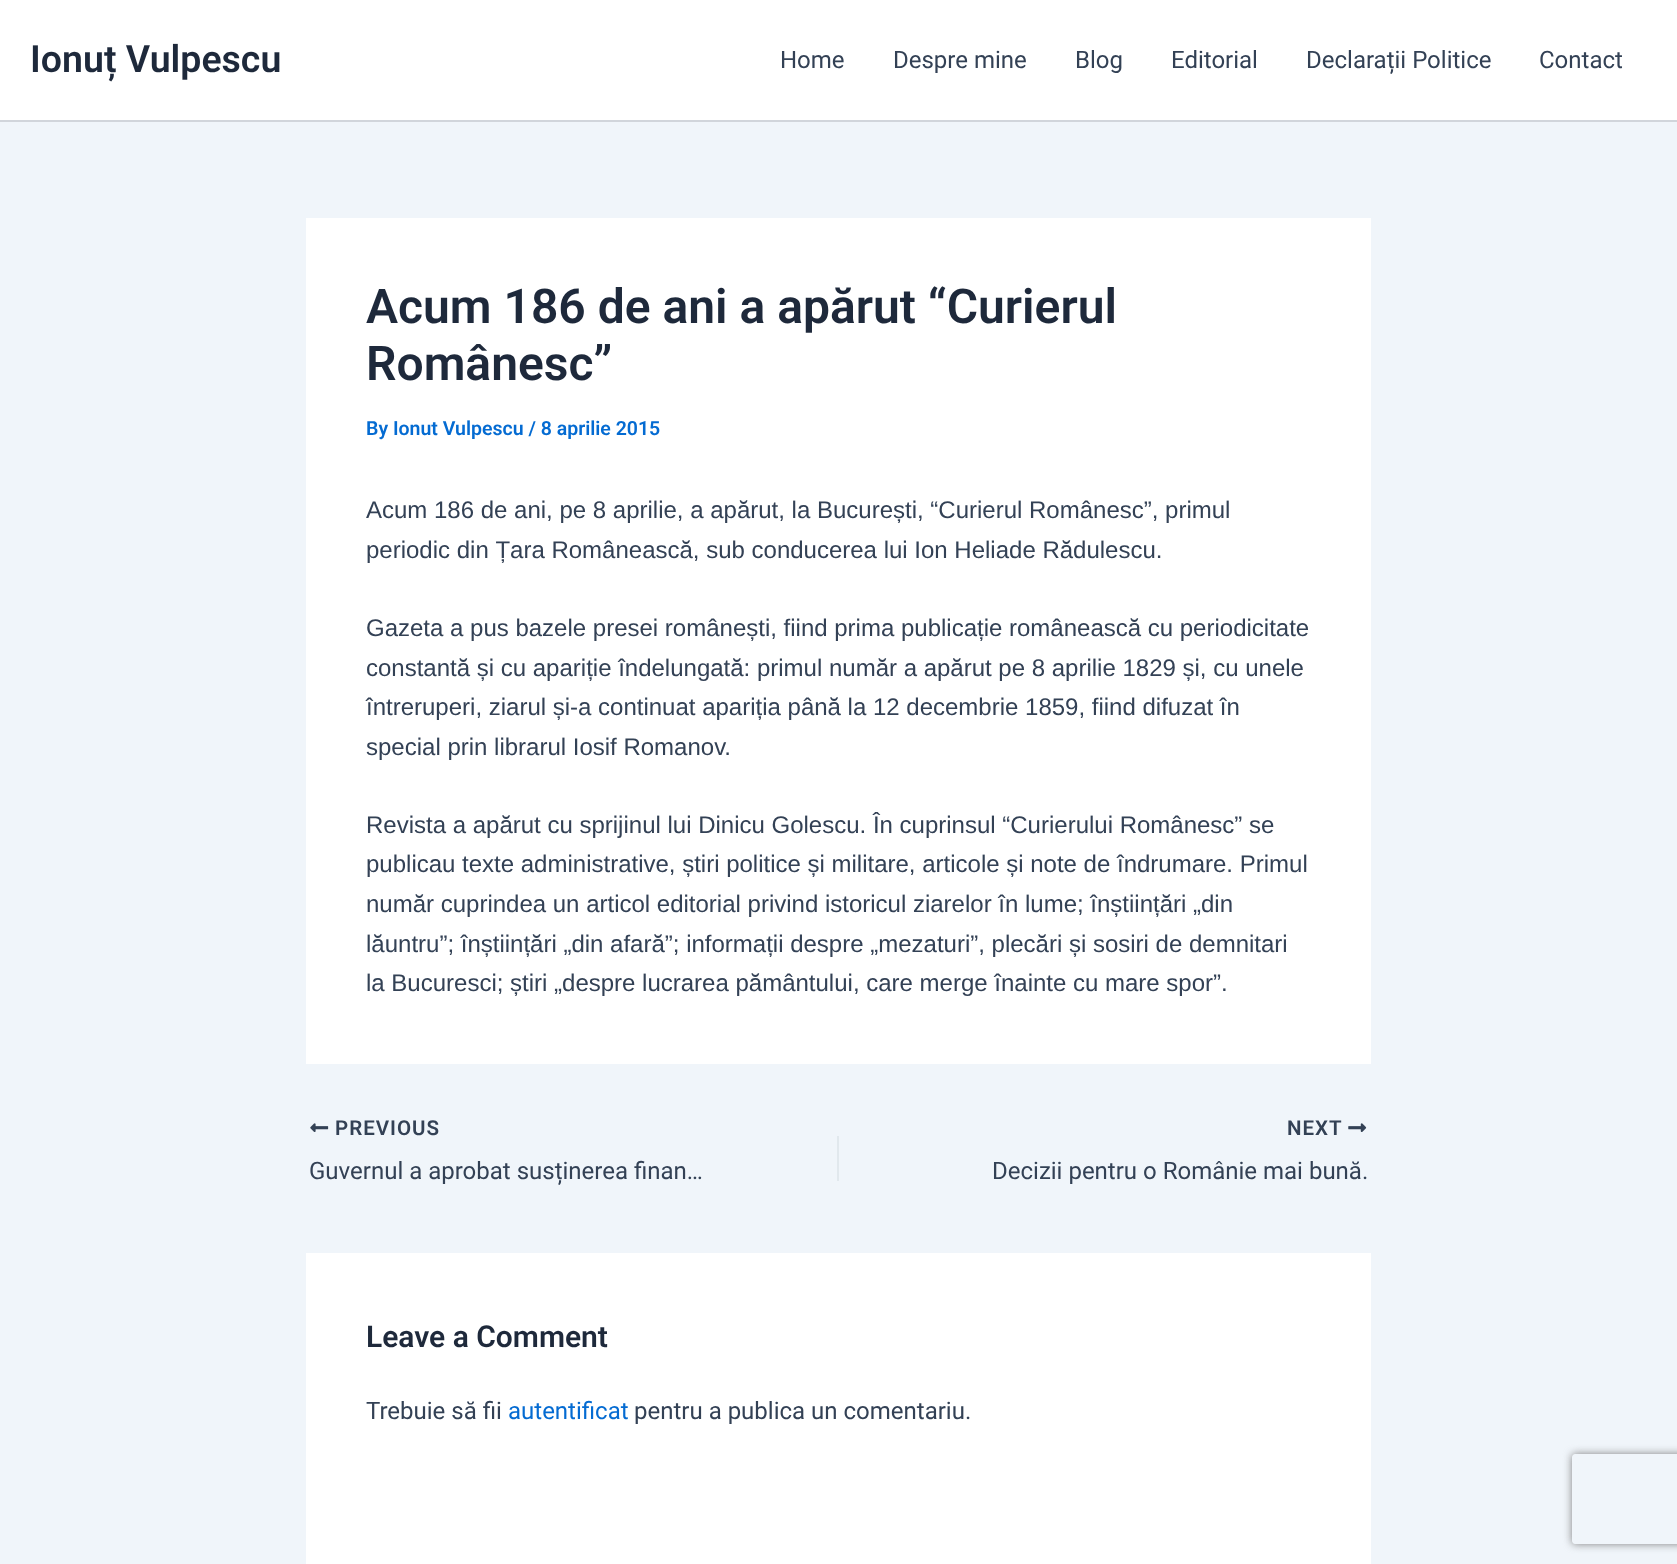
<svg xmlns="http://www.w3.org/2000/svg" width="1677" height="1564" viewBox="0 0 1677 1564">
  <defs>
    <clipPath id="clip1"><path d="M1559 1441H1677V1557H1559ZM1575 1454H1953C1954.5 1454 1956 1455.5 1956 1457V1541C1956 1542.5 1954.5 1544 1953 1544H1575C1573.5 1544 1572 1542.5 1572 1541V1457C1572 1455.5 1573.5 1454 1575 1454Z" clip-rule="evenodd"/></clipPath>
  </defs>
  <rect width="100%" height="100%" fill="#f0f5fa"/>
  <path d="M0 0h1677v120H0z" fill="#fff"/>
  <path d="M0 120h1677v2H0z" fill="#d1d5db"/>
  <path d="M306 218h1065v846H306z" fill="#fff"/>
  <image x="310" y="1123" width="19" height="9" href="img/1.png"/>
  <path d="M837 1136h2v45H837z" fill="#e1e8ed"/>
  <image x="1348" y="1123" width="19" height="9" href="img/2.png"/>
  <path d="M306 1253h1065v311H306z" fill="#fff"/>
  <g clip-path="url(#clip1)">
    <rect x="1572" y="1454" width="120" height="90" rx="3" fill="#808080" filter="blur(4px)"/>
  </g>
  <text x="30" y="72" font-family="Roboto" font-size="37.5" font-weight="600" fill="#1e293b">Ionuț Vulpescu</text>
  <g font-family="Roboto" font-size="24" fill="#334155">
    <text x="780" y="68">Home</text>
    <text x="893" y="68">Despre mine</text>
    <text x="1075" y="68">Blog</text>
    <text x="1171" y="68">Editorial</text>
    <text x="1306" y="68">Declarații Politice</text>
    <text x="1539" y="68">Contact</text>
  </g>
  <g font-family="Roboto" font-size="48" font-weight="600" fill="#1e293b">
    <text x="366" y="323">Acum 186 de ani a apărut “Curierul</text>
    <text x="366" y="380">Românesc”</text>
  </g>
  <text x="366" y="435" font-family="Roboto" font-size="19.5" font-weight="600" fill="#046bd2">By Ionut Vulpescu / 8 aprilie 2015</text>
  <g font-family="Liberation Sans" font-size="24" fill="#334155">
    <text x="366" y="518">Acum 186 de ani, pe 8 aprilie, a apărut, la București, “Curierul Românesc”, primul</text>
    <text x="366" y="558">periodic din Țara Românească, sub conducerea lui Ion Heliade Rădulescu.</text>
    <text x="366" y="636">Gazeta a pus bazele presei românești, fiind prima publicație românească cu periodicitate</text>
    <text x="366" y="676">constantă și cu apariție îndelungată: primul număr a apărut pe 8 aprilie 1829 și, cu unele</text>
    <text x="366" y="715">întreruperi, ziarul și-a continuat apariția până la 12 decembrie 1859, fiind difuzat în</text>
    <text x="366" y="755">special prin librarul Iosif Romanov.</text>
    <text x="366" y="833">Revista a apărut cu sprijinul lui Dinicu Golescu. În cuprinsul “Curierului Românesc” se</text>
    <text x="366" y="872">publicau texte administrative, știri politice și militare, articole și note de îndrumare. Primul</text>
    <text x="366" y="912">număr cuprindea un articol editorial privind istoricul ziarelor în lume; înștiințări „din</text>
    <text x="366" y="952">lăuntru”; înștiințări „din afară”; informații despre „mezaturi”, plecări și sosiri de demnitari</text>
    <text x="366" y="991">la Bucuresci; știri „despre lucrarea pământului, care merge înainte cu mare spor”.</text>
  </g>
  <text x="335" y="1135" font-family="Roboto" font-size="20.5" font-weight="600" letter-spacing="1" fill="#334155">PREVIOUS</text>
  <text x="309" y="1179" font-family="Roboto" font-size="24" fill="#334155">Guvernul a aprobat susținerea finan…</text>
  <text x="1287" y="1135" font-family="Roboto" font-size="20.5" font-weight="600" letter-spacing="1" fill="#334155">NEXT</text>
  <text x="992" y="1179" font-family="Roboto" font-size="24" fill="#334155">Decizii pentru o Românie mai bună.</text>
  <text x="366" y="1347" font-family="Roboto" font-size="30" font-weight="600" fill="#1e293b">Leave a Comment</text>
  <text x="366" y="1419" font-family="Roboto" font-size="24" fill="#334155">Trebuie să fii</text>
  <text x="508" y="1419" font-family="Roboto" font-size="24" fill="#046bd2">autentificat</text>
  <text x="634" y="1419" font-family="Roboto" font-size="24" fill="#334155">pentru a publica un comentariu.</text>
</svg>
